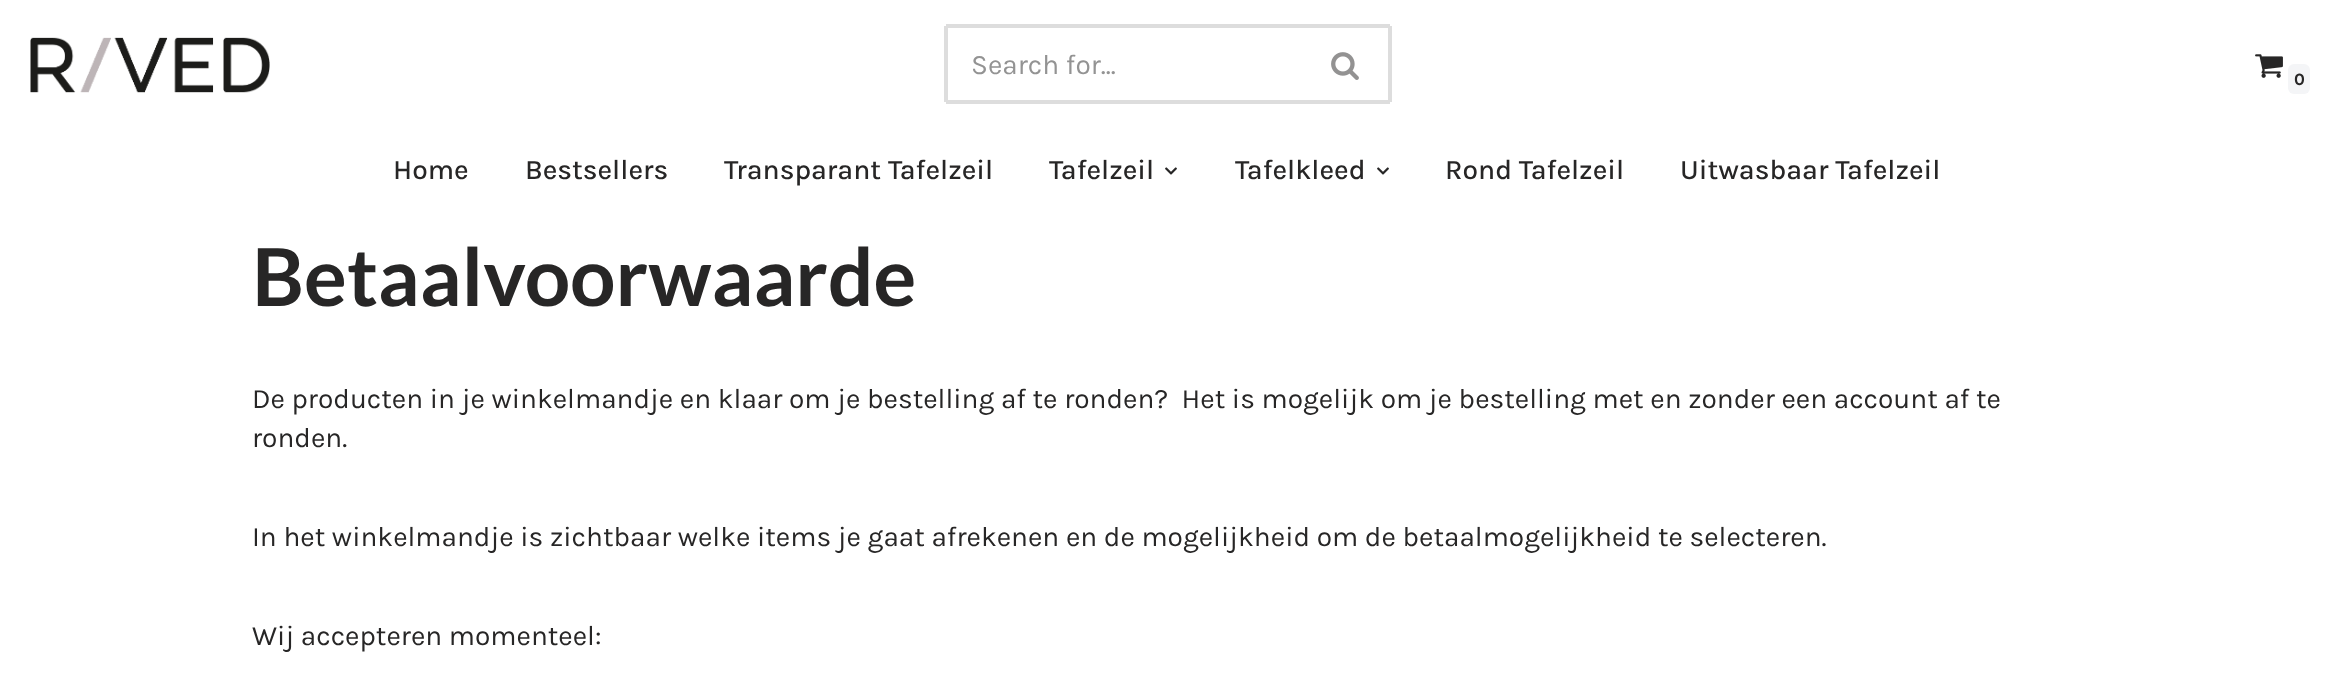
<svg xmlns="http://www.w3.org/2000/svg" width="2333" height="699" viewBox="0 0 2333 699">
  <rect width="100%" height="100%" fill="#fff"/>
  <image x="30" y="37" width="240" height="56" href="img/1.png"/>
  <path d="M946 24h444v4H946z" fill="#ddd"/>
  <path d="M946 100h356v4H946z" fill="#ddd"/>
  <path d="M944 26h4v76H944z" fill="#ddd"/>
  <path d="M1388 26h4v76H1388z" fill="#ddd"/>
  <path d="M1302 100h88v4H1302z" fill="#ddd"/>
  <image x="1331" y="52" width="28" height="28" href="img/2.png"/>
  <image x="2255" y="54" width="28" height="24" href="img/3.png"/>
  <rect x="2288" y="64" width="22" height="30" rx="6" fill="#f4f5f7"/>
  <image x="1165" y="167" width="12" height="8" href="img/4.png"/>
  <image x="1377" y="167" width="12" height="8" href="img/4.png"/>
  <text x="971" y="74" font-family="Karla" font-size="28" fill="#939393">Search for...</text>
  <text x="2294" y="85" font-family="Karla" font-size="17" font-weight="bold" fill="#272626">0</text>
  <g font-family="Karla" font-size="28" font-weight="500" fill="#272626">
    <text x="393" y="179">Home</text>
    <text x="525" y="179">Bestsellers</text>
    <text x="724" y="179">Transparant Tafelzeil</text>
    <text x="1049" y="179">Tafelzeil</text>
    <text x="1235" y="179">Tafelkleed</text>
    <text x="1445" y="179">Rond Tafelzeil</text>
    <text x="1680" y="179">Uitwasbaar Tafelzeil</text>
  </g>
  <text x="252" y="306" font-family="Lato" font-size="80" font-weight="bold" fill="#272626">Betaalvoorwaarde</text>
  <g font-family="Karla" font-size="28" fill="#272626">
    <text x="252" y="408" xml:space="preserve">De producten in je winkelmandje en klaar om je bestelling af te ronden?  Het is mogelijk om je bestelling met en zonder een account af te</text>
    <text x="252" y="447">ronden.</text>
    <text x="252" y="546">In het winkelmandje is zichtbaar welke items je gaat afrekenen en de mogelijkheid om de betaalmogelijkheid te selecteren.</text>
    <text x="252" y="645">Wij accepteren momenteel:</text>
  </g>
</svg>
